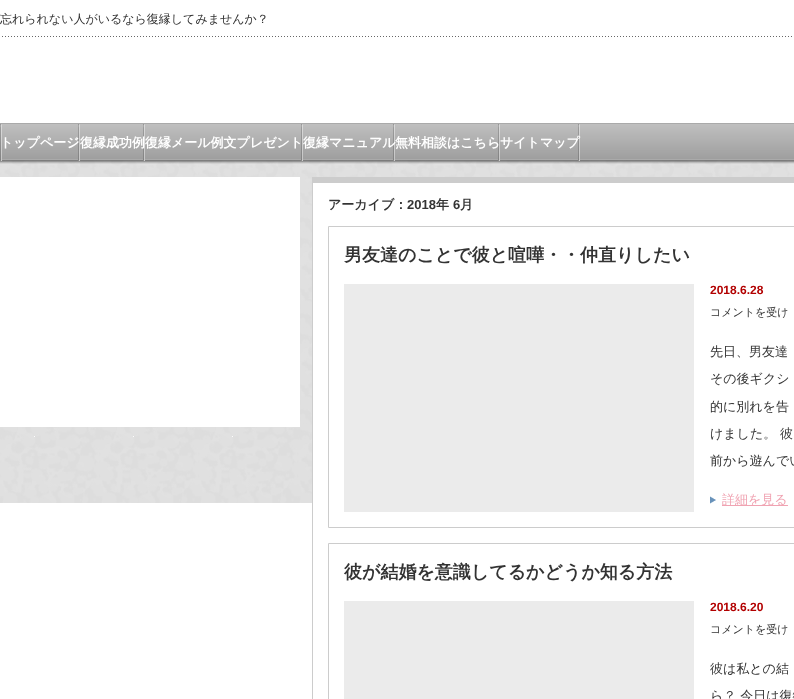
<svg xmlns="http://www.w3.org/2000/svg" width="794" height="699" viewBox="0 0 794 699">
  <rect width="100%" height="100%" fill="#fff"/>
  <image x="0" y="36" width="794" height="467" href="img/1.png"/>
  <image x="0" y="124" width="2" height="37" href="img/2.png"/>
  <image x="78" y="124" width="2" height="37" href="img/2.png"/>
  <image x="143" y="124" width="2" height="37" href="img/2.png"/>
  <image x="301" y="124" width="2" height="37" href="img/2.png"/>
  <image x="393" y="124" width="2" height="37" href="img/2.png"/>
  <image x="498" y="124" width="2" height="37" href="img/2.png"/>
  <image x="578" y="124" width="2" height="37" href="img/2.png"/>
  <path d="M0 177h300v250H0z" fill="#fff"/>
  <path d="M313 183h481v320H313z" fill="#fff"/>
  <path d="M312 177h482v6H312z" fill="#ccc"/>
  <path d="M312 177h1v522H312z" fill="#ccc"/>
  <path d="M328.5 226.5h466v301H328.5z" fill="none" stroke="#ccc"/>
  <path d="M344 284h350v228H344z" fill="#ebebeb"/>
  <image x="710" y="496" width="6" height="8" href="img/3.png"/>
  <path d="M722 505h66v1H722z" fill="#f0a3b2"/>
  <path d="M328.5 543.5h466v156H328.5z" fill="none" stroke="#ccc"/>
  <path d="M344 601h350v98H344z" fill="#ebebeb"/>
  <text x="0" y="23" font-family="WenQuanYi Zen Hei" font-size="12" font-weight="500" fill="#333">忘れられない人がいるなら復縁してみませんか？</text>
  <g font-family="WenQuanYi Zen Hei" font-size="13" font-weight="bold" fill="#fff">
    <text x="0" y="147">トップページ</text>
    <text x="80" y="147">復縁成功例復縁メール例文プレゼント</text>
    <text x="303" y="147">復縁マニュアル</text>
    <text x="395" y="147">無料相談はこちら</text>
    <text x="500" y="147">サイトマップ</text>
  </g>
  <text x="328" y="209" font-family="WenQuanYi Zen Hei" font-size="13" font-weight="bold" fill="#333">アーカイブ：</text>
  <text x="407" y="209" font-family="Liberation Sans" font-size="13" font-weight="bold" fill="#333">2018</text>
  <text x="436" y="209" font-family="WenQuanYi Zen Hei" font-size="13" font-weight="bold" fill="#333">年</text>
  <text x="453" y="209" font-family="Liberation Sans" font-size="13" font-weight="bold" fill="#333">6</text>
  <text x="460" y="209" font-family="WenQuanYi Zen Hei" font-size="13" font-weight="bold" fill="#333">月</text>
  <text x="344" y="261" font-family="WenQuanYi Zen Hei" font-size="18" font-weight="bold" fill="#333">男友達のことで彼と喧嘩・・仲直りしたい</text>
  <text x="710" y="294" font-family="Liberation Sans" font-size="12" font-weight="bold" fill="#b20000">2018.6.28</text>
  <text x="710" y="316" font-family="WenQuanYi Zen Hei" font-size="11" font-weight="500" fill="#333">コメントを受け</text>
  <g font-family="WenQuanYi Zen Hei" font-size="13" font-weight="500" fill="#333">
    <text x="710" y="356">先日、男友達</text>
    <text x="710" y="383">その後ギクシ</text>
    <text x="710" y="411">的に別れを告</text>
    <text x="710" y="438">けました。 彼</text>
    <text x="710" y="465">前から遊んでい</text>
  </g>
  <text x="722" y="504" font-family="WenQuanYi Zen Hei" font-size="13" font-weight="500" fill="#f0a3b2">詳細を見る</text>
  <text x="344" y="578" font-family="WenQuanYi Zen Hei" font-size="18" font-weight="bold" fill="#333">彼が結婚を意識してるかどうか知る方法</text>
  <text x="710" y="611" font-family="Liberation Sans" font-size="12" font-weight="bold" fill="#b20000">2018.6.20</text>
  <text x="710" y="633" font-family="WenQuanYi Zen Hei" font-size="11" font-weight="500" fill="#333">コメントを受け</text>
  <g font-family="WenQuanYi Zen Hei" font-size="13" font-weight="500" fill="#333">
    <text x="710" y="673">彼は私との結</text>
    <text x="710" y="700">ら？ 今日は復縁</text>
  </g>
</svg>
